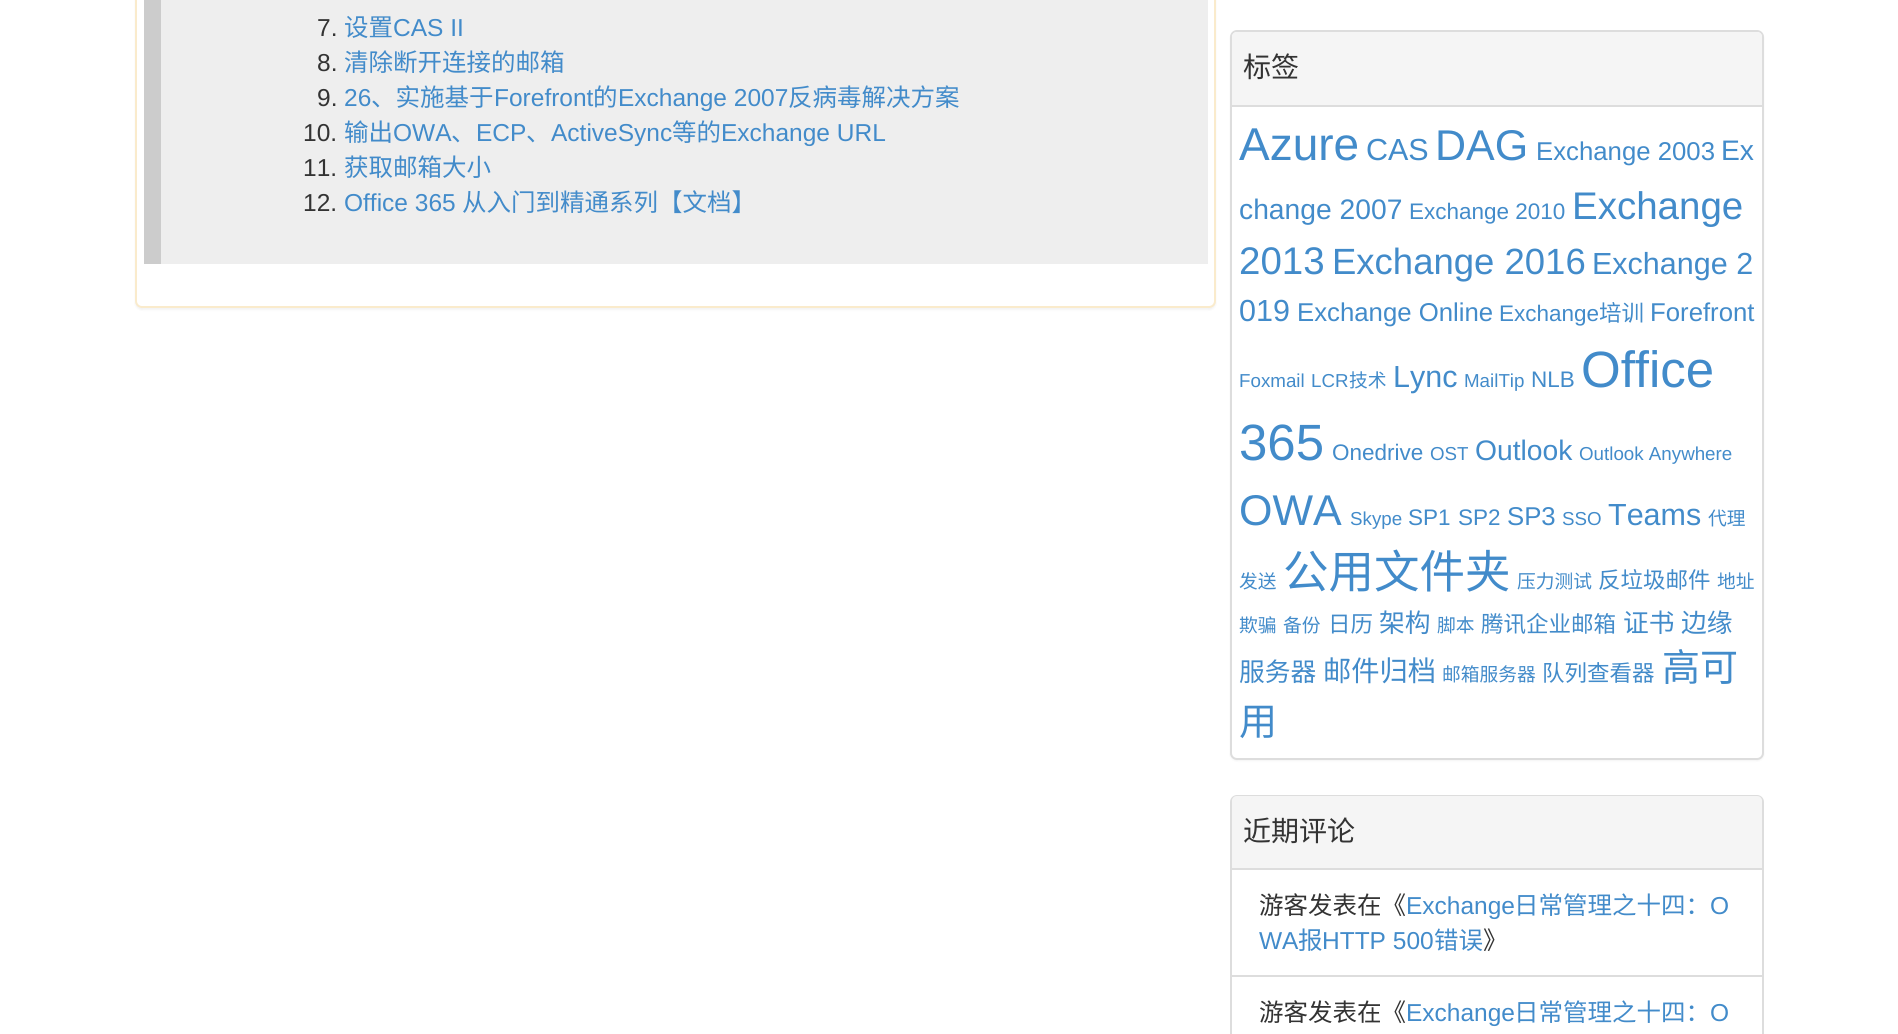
import math
import cairo

surface = cairo.ImageSurface(cairo.FORMAT_RGB24, 1898, 1034)
c = cairo.Context(surface)
options = cairo.FontOptions()
options.set_hint_metrics(cairo.HINT_METRICS_OFF)
options.set_hint_style(cairo.HINT_STYLE_NONE)
c.set_font_options(options)
c.set_miter_limit(4)
def C(code):
 c.set_source_rgb(*(v / 255 for v in bytes.fromhex(code[-6:])))
def F(family, size, italic, bold):
 c.select_font_face(family, cairo.FONT_SLANT_ITALIC if italic else cairo.FONT_SLANT_NORMAL, cairo.FONT_WEIGHT_BOLD if bold else cairo.FONT_WEIGHT_NORMAL)
 c.set_font_size(size)
def T(x, y, s):
 c.move_to(x, y)
 c.show_text(s)
def R(x, y, w, h):
 c.rectangle(x, y, w, h)
 c.fill()
def Q(x, y, w, h, r):
 c.new_sub_path()
 for i, (u, v) in enumerate([(x + w - r, y + h - r), (x + r, y + h - r), (x + r, y + r), (x + w - r, y + r)]):
  c.arc(u, v, r, i * math.pi / 2, (i + 1) * math.pi / 2)
 c.close_path()
def S(x, y, w, h, r, blur, alpha):
 c.push_group_with_content(cairo.CONTENT_ALPHA)
 c.set_operator(cairo.OPERATOR_SOURCE)
 for i in range(15, -16, -2):
  e = blur * i / 6
  if min(w, h) + 2 * e > 0:
   c.set_source_rgba(0, 0, 0, alpha * math.erfc((i - 1) / 8.5) / 2)
   Q(x - e, y - e, w + 2 * e, h + 2 * e, max(0, min(r + e + blur * .6, min(w, h) / 2 + e)))
   c.fill()
 c.mask(c.pop_group())
C('ffffff')
c.paint()
C('000000')
S(135,-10,1081,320,7,1,.05)
C('ffffff')
Q(136,-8,1079,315,6)
c.fill_preserve()
C('faebcc')
c.stroke()
C('eeeeee')
R(161,0,1047,264)
C('cccccc')
R(144,0,17,264)
F('Liberation Sans',24.5,0,0)
C('333333')
T(317,36,'7.')
F('Noto Sans CJK SC',24.5,0,0)
C('428bca')
T(344,36,'设置')
F('Liberation Sans',24.5,0,0)
T(393,36,'CAS II')
C('333333')
T(317,71,'8.')
F('Noto Sans CJK SC',24.5,0,0)
C('428bca')
T(344,71,'清除断开连接的邮箱')
F('Liberation Sans',24.5,0,0)
C('333333')
T(317,106,'9.')
C('428bca')
T(344,106,'26')
F('Noto Sans CJK SC',24.5,0,0)
T(371,106,'、实施基于')
F('Liberation Sans',24.5,0,0)
T(494,106,'Forefront')
F('Noto Sans CJK SC',24.5,0,0)
T(593,106,'的')
F('Liberation Sans',24.5,0,0)
T(618,106,'Exchange 2007')
F('Noto Sans CJK SC',24.5,0,0)
T(788,106,'反病毒解决方案')
F('Liberation Sans',24.5,0,0)
C('333333')
T(303,141,'10.')
F('Noto Sans CJK SC',24.5,0,0)
C('428bca')
T(344,141,'输出')
F('Liberation Sans',24.5,0,0)
T(393,141,'OWA')
F('Noto Sans CJK SC',24.5,0,0)
T(451,141,'、')
F('Liberation Sans',24.5,0,0)
T(476,141,'ECP')
F('Noto Sans CJK SC',24.5,0,0)
T(526,141,'、')
F('Liberation Sans',24.5,0,0)
T(551,141,'ActiveSync')
F('Noto Sans CJK SC',24.5,0,0)
T(672,141,'等的')
F('Liberation Sans',24.5,0,0)
T(721,141,'Exchange URL')
C('333333')
T(303,176,'11.')
F('Noto Sans CJK SC',24.5,0,0)
C('428bca')
T(344,176,'获取邮箱大小')
F('Liberation Sans',24.5,0,0)
C('333333')
T(303,211,'12.')
C('428bca')
T(344,211,'Office 365')
F('Noto Sans CJK SC',24.5,0,0)
T(462,211,'从入门到精通系列【文档】')
C('000000')
S(1230,32,534,729,7,1,.05)
C('ffffff')
Q(1231,31,532,728,6)
c.fill_preserve()
C('dddddd')
c.stroke()
C('f5f5f5')
c.new_path()
c.move_to(1237,32)
c.line_to(1757,32)
c.curve_to(1760,32,1762,34,1762,37)
c.line_to(1762,107)
c.line_to(1232,107)
c.line_to(1232,37)
c.curve_to(1232,34,1234,32,1237,32)
c.close_path()
c.fill()
C('dddddd')
R(1232,105,530,2)
F('Noto Sans CJK SC',28,0,0)
C('333333')
T(1243,77,'标签')
F('Liberation Sans',46,0,0)
C('428bca')
T(1239,160,'Azure')
F('Liberation Sans',30.5,0,0)
T(1366,160,'CAS')
F('Liberation Sans',43,0,0)
T(1435,160,'DAG')
F('Liberation Sans',25.75,0,0)
T(1536,160,'Exchange 2003')
F('Liberation Sans',28.25,0,0)
T(1721,160,'Ex')
T(1239,219,'change 2007')
F('Liberation Sans',22.5,0,0)
T(1409,219,'Exchange 2010')
F('Liberation Sans',38.5,0,0)
T(1572,219,'Exchange')
T(1239,274,'2013')
F('Liberation Sans',36.5,0,0)
T(1332,274,'Exchange 2016')
F('Liberation Sans',30.5,0,0)
T(1592,274,'Exchange 2')
T(1239,321,'019')
F('Liberation Sans',25.75,0,0)
T(1297,321,'Exchange Online')
F('Liberation Sans',22.5,0,0)
T(1499,321,'Exchange')
F('Noto Sans CJK SC',22.5,0,0)
T(1599,321,'培训')
F('Liberation Sans',25.75,0,0)
T(1650,321,'Forefront')
F('Liberation Sans',18.75,0,0)
T(1239,387,'Foxmail')
T(1311,387,'LCR')
F('Noto Sans CJK SC',18.75,0,0)
T(1349,387,'技术')
F('Liberation Sans',30.5,0,0)
T(1393,387,'Lync')
F('Liberation Sans',18.75,0,0)
T(1464,387,'MailTip')
F('Liberation Sans',22.5,0,0)
T(1531,387,'NLB')
F('Liberation Sans',51,0,0)
T(1581,387,'Office')
T(1239,460,'365')
F('Liberation Sans',22.5,0,0)
T(1332,460,'Onedrive')
F('Liberation Sans',18.75,0,0)
T(1430,460,'OST')
F('Liberation Sans',28.25,0,0)
T(1475,460,'Outlook')
F('Liberation Sans',18.75,0,0)
T(1579,460,'Outlook Anywhere')
F('Liberation Sans',43,0,0)
T(1239,525,'OWA')
F('Liberation Sans',18.75,0,0)
T(1350,525,'Skype')
F('Liberation Sans',22.5,0,0)
T(1408,525,'SP1')
T(1458,525,'SP2')
F('Liberation Sans',25.75,0,0)
T(1507,525,'SP3')
F('Liberation Sans',18.75,0,0)
T(1562,525,'SSO')
F('Liberation Sans',30.5,0,0)
T(1608,525,'Teams')
F('Noto Sans CJK SC',18.75,0,0)
T(1708,525,'代理')
T(1239,588,'发送')
F('Noto Sans CJK SC',45.5,0,0)
T(1283,588,'公用文件夹')
F('Noto Sans CJK SC',18.75,0,0)
T(1517,588,'压力测试')
F('Noto Sans CJK SC',22.5,0,0)
T(1598,588,'反垃圾邮件')
F('Noto Sans CJK SC',18.75,0,0)
T(1717,588,'地址')
T(1239,632,'欺骗')
T(1283,632,'备份')
F('Noto Sans CJK SC',22.5,0,0)
T(1328,632,'日历')
F('Noto Sans CJK SC',25.75,0,0)
T(1379,632,'架构')
F('Noto Sans CJK SC',18.75,0,0)
T(1437,632,'脚本')
F('Noto Sans CJK SC',22.5,0,0)
T(1481,632,'腾讯企业邮箱')
F('Noto Sans CJK SC',25.75,0,0)
T(1623,632,'证书')
T(1681,632,'边缘')
T(1239,681,'服务器')
F('Noto Sans CJK SC',28.25,0,0)
T(1323,681,'邮件归档')
F('Noto Sans CJK SC',18.75,0,0)
T(1442,681,'邮箱服务器')
F('Noto Sans CJK SC',22.5,0,0)
T(1542,681,'队列查看器')
F('Noto Sans CJK SC',38,0,0)
T(1662,681,'高可')
T(1239,735,'用')
Q(1231,796,532,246,6)
C('dddddd')
c.stroke()
C('f5f5f5')
c.new_path()
c.move_to(1237,796)
c.line_to(1757,796)
c.curve_to(1760,796,1762,798,1762,801)
c.line_to(1762,870)
c.line_to(1232,870)
c.line_to(1232,801)
c.curve_to(1232,798,1234,796,1237,796)
c.close_path()
c.fill()
C('dddddd')
R(1232,868,530,2)
F('Noto Sans CJK SC',28,0,0)
C('333333')
T(1243,841,'近期评论')
C('dddddd')
R(1232,975,530,2)
F('Noto Sans CJK SC',24.5,0,0)
C('333333')
T(1259,914,'游客发表在《')
F('Liberation Sans',24.5,0,0)
C('428bca')
T(1406,914,'Exchange')
F('Noto Sans CJK SC',24.5,0,0)
T(1514,914,'日常管理之十四：')
F('Liberation Sans',24.5,0,0)
T(1710,914,'O')
T(1259,949,'WA')
F('Noto Sans CJK SC',24.5,0,0)
T(1298,949,'报')
F('Liberation Sans',24.5,0,0)
T(1322,949,'HTTP 500')
F('Noto Sans CJK SC',24.5,0,0)
T(1434,949,'错误')
C('333333')
T(1483,949,'》')
T(1259,1021,'游客发表在《')
F('Liberation Sans',24.5,0,0)
C('428bca')
T(1406,1021,'Exchange')
F('Noto Sans CJK SC',24.5,0,0)
T(1514,1021,'日常管理之十四：')
F('Liberation Sans',24.5,0,0)
T(1710,1021,'O')
surface.write_to_png('o.png')
